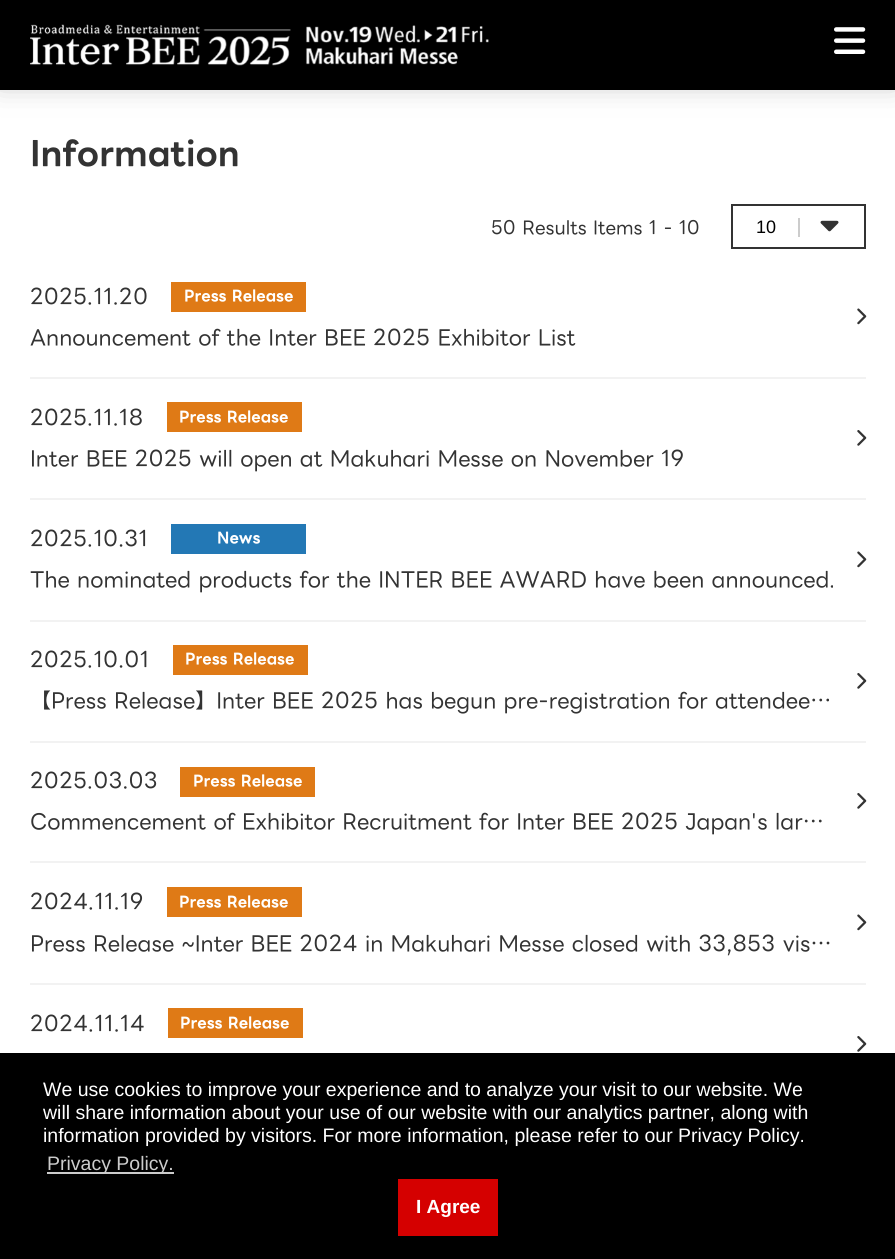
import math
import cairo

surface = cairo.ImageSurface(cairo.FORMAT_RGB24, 895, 1259)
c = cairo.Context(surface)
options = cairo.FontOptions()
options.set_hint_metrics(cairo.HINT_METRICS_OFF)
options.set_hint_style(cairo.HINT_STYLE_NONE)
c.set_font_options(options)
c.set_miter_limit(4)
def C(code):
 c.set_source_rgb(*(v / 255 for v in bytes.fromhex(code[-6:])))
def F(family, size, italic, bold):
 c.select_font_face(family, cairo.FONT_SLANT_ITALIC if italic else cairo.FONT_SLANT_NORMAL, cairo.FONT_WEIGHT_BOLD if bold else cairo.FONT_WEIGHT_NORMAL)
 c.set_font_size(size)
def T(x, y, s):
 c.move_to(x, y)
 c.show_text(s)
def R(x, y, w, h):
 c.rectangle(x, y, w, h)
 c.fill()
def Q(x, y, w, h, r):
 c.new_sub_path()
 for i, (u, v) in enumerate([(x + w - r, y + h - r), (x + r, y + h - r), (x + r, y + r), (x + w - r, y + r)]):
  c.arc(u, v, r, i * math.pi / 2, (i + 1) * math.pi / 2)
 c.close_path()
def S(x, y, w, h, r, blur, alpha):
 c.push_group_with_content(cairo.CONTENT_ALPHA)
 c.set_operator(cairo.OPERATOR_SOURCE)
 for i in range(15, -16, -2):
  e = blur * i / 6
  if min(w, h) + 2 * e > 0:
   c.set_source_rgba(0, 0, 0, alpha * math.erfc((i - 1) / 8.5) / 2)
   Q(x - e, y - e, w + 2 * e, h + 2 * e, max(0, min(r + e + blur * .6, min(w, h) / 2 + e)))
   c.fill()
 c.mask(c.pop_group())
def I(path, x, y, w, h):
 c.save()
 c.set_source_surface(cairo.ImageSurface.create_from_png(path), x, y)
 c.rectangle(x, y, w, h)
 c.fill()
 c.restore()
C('ffffff')
c.paint()
C('b3b3b3')
S(0,-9,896,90,0,15,1)
C('000000')
R(0,0,895,90)
I('1.png',30,24,459,42)
I('2.png',834,27,32,27)
F('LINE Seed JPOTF',33,0,1)
C('333333')
T(30,165,'Information')
F('LINE Seed JPOTF',18,0,0)
T(491,234,'50 Results Items 1 - 10')
c.rectangle(732,205,133,43)
c.stroke()
F('Liberation Sans',18,0,0)
C('000000')
T(756,233,'10')
C('cccccc')
R(798,218,2,19)
I('3.png',820,220,19,12)
F('LINE Seed JPOTF',21,0,0)
C('333333')
T(30,304,'2025.11.20')
C('df7a16')
R(171,282,135,30)
F('LINE Seed JPOTF',15,0,1)
C('ffffff')
T(184,301,'Press Release')
I('4.png',857,308,10,17)
F('LINE Seed JPOTF',21,0,0)
C('333333')
T(30,345,'Announcement of the Inter BEE 2025 Exhibitor List')
C('f2f2f2')
R(30,377,836,2)
C('333333')
T(30,425,'2025.11.18')
C('df7a16')
R(167,402,135,30)
F('LINE Seed JPOTF',15,0,1)
C('ffffff')
T(179,422,'Press Release')
I('5.png',857,430,10,16)
F('LINE Seed JPOTF',21,0,0)
C('333333')
T(30,466,'Inter BEE 2025 will open at Makuhari Messe on November 19')
C('f2f2f2')
R(30,498,836,2)
C('333333')
T(30,546,'2025.10.31')
C('2378b5')
R(171,524,135,30)
F('LINE Seed JPOTF',15,0,1)
C('ffffff')
T(217,543,'News')
I('4.png',857,551,10,17)
F('LINE Seed JPOTF',21,0,0)
C('333333')
T(30,587,'The nominated products for the INTER BEE AWARD have been announced.')
C('f2f2f2')
R(30,620,836,2)
C('333333')
T(30,667,'2025.10.01')
C('df7a16')
R(173,645,135,30)
F('LINE Seed JPOTF',15,0,1)
C('ffffff')
T(185,664,'Press Release')
I('5.png',857,673,10,16)
F('LINE Seed JPOTF',21,0,0)
C('333333')
T(30,708,'【Press Release】Inter BEE 2025 has begun pre-registration for attendee…')
C('f2f2f2')
R(30,741,836,2)
C('333333')
T(30,788,'2025.03.03')
C('df7a16')
R(180,767,135,30)
F('LINE Seed JPOTF',15,0,1)
C('ffffff')
T(193,786,'Press Release')
I('5.png',857,793,10,16)
F('LINE Seed JPOTF',21,0,0)
C('333333')
T(30,829,'Commencement of Exhibitor Recruitment for Inter BEE 2025 Japan\'s lar…')
C('f2f2f2')
R(30,861,836,2)
C('333333')
T(30,909,'2024.11.19')
C('df7a16')
R(167,887,135,30)
F('LINE Seed JPOTF',15,0,1)
C('ffffff')
T(179,907,'Press Release')
I('4.png',857,914,10,17)
F('LINE Seed JPOTF',21,0,0)
C('333333')
T(30,951,'Press Release ~Inter BEE 2024 in Makuhari Messe closed with 33,853 vis…')
C('f2f2f2')
R(30,983,836,2)
C('333333')
T(30,1031,'2024.11.14')
C('df7a16')
R(168,1008,135,30)
F('LINE Seed JPOTF',15,0,1)
C('ffffff')
T(180,1028,'Press Release')
I('5.png',857,1036,10,16)
C('000000')
R(0,1053,895,206)
F('Liberation Sans',19.5,0,0)
C('ffffff')
T(43,1096,'We use cookies to improve your experience and to analyze your visit to our website. We')
T(43,1119,'will share information about your use of our website with our analytics partner, along with')
T(43,1142,'information provided by visitors. For more information, please refer to our Privacy Policy.')
C('cccccc')
R(47,1172,127,2)
T(47,1170,'Privacy Policy.')
C('d50000')
R(398,1179,100,57)
F('Liberation Sans',19,0,1)
C('ffffff')
T(416,1213,'I Agree')
surface.write_to_png('o.png')
